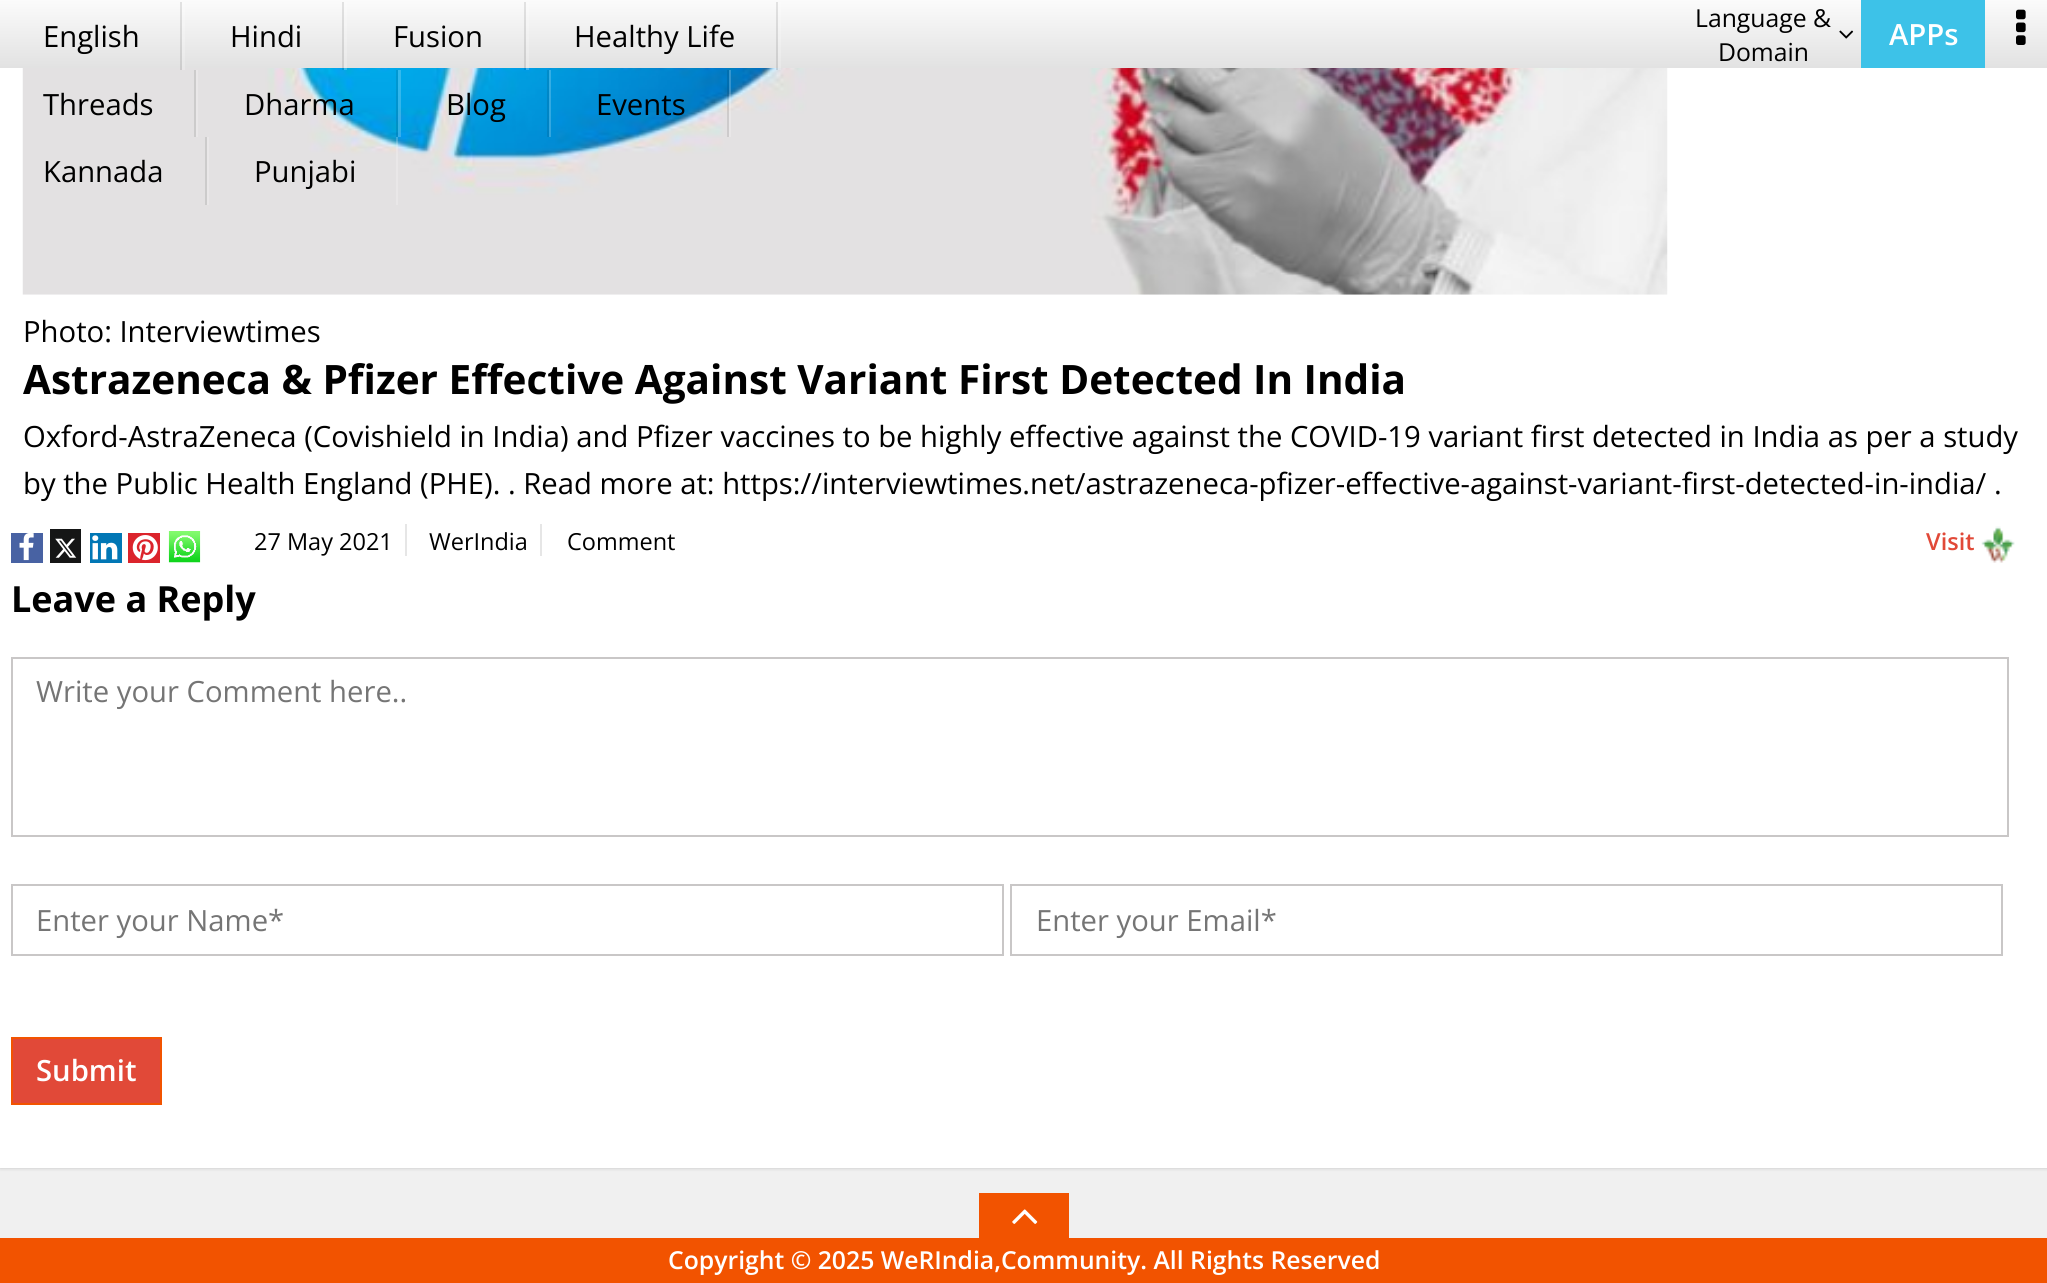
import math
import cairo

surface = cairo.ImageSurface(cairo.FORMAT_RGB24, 2047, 1283)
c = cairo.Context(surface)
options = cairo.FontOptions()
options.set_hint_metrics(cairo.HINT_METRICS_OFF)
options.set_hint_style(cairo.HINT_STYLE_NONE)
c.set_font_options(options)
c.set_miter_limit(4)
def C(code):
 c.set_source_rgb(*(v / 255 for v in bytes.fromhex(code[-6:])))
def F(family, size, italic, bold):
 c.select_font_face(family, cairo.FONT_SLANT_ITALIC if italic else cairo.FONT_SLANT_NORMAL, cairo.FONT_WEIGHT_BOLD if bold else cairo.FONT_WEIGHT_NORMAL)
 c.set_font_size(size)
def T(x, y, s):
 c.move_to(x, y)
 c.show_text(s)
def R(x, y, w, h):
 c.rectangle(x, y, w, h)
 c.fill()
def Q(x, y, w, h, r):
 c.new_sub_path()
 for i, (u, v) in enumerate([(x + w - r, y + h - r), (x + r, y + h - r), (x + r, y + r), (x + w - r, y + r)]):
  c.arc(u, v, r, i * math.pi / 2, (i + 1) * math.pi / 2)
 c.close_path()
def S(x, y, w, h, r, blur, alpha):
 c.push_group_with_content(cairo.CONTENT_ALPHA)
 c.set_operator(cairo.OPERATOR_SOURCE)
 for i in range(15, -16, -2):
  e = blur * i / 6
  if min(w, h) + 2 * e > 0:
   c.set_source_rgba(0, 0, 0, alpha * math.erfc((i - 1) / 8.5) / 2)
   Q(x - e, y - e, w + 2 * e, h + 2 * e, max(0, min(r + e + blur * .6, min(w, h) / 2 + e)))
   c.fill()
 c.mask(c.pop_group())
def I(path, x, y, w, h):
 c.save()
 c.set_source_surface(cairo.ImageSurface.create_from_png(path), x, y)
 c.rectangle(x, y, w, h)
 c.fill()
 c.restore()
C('f0f0f0')
c.paint()
C('000000')
S(0,-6,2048,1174,0,2,.2)
gradient = cairo.LinearGradient(1024,0,1024,68)
gradient.add_color_stop_rgba(0,0.984,0.984,0.984,1)
gradient.add_color_stop_rgba(1,0.886,0.886,0.886,1)
c.set_source(gradient)
R(0,0,2047,68)
C('ffffff')
R(0,68,2047,1100)
I('3.png',22,68,1646,227)
c.set_source_rgba(1,1,1,0.2)
c.new_path()
c.move_to(5,2)
c.line_to(182,2)
c.line_to(182,70)
c.line_to(5,70)
c.line_to(185,70)
c.line_to(185,2)
c.close_path()
c.fill()
c.set_source_rgba(0,0,0,0.1)
R(180,2,2,68)
F('Open Sans',29.25,0,0)
C('000000')
T(43,47,'English')
c.set_source_rgba(1,1,1,0.2)
c.new_path()
c.move_to(191,2)
c.line_to(344,2)
c.line_to(344,70)
c.line_to(191,70)
c.line_to(347,70)
c.line_to(347,2)
c.close_path()
c.fill()
c.set_source_rgba(0,0,0,0.1)
R(342,2,2,68)
C('000000')
T(230,47,'Hindi')
c.set_source_rgba(1,1,1,0.2)
c.new_path()
c.move_to(356,2)
c.line_to(526,2)
c.line_to(526,70)
c.line_to(356,70)
c.line_to(529,70)
c.line_to(529,2)
c.close_path()
c.fill()
c.set_source_rgba(0,0,0,0.1)
R(524,2,2,68)
C('000000')
T(393,47,'Fusion')
c.set_source_rgba(1,1,1,0.2)
c.new_path()
c.move_to(536,2)
c.line_to(778,2)
c.line_to(778,70)
c.line_to(536,70)
c.line_to(781,70)
c.line_to(781,2)
c.close_path()
c.fill()
c.set_source_rgba(0,0,0,0.1)
R(776,2,2,68)
C('000000')
T(574,47,'Healthy Life')
C('e9e7e8')
R(196,70,2,67)
C('cccbcb')
R(194,70,2,67)
C('000000')
T(43,115,'Threads')
c.set_source_rgba(1,1,1,0.2)
R(398,70,3,67)
c.set_source_rgba(0,0,0,0.1)
R(396,70,2,67)
C('000000')
T(244,115,'Dharma')
c.set_source_rgba(1,1,1,0.2)
R(549,70,2,67)
c.set_source_rgba(0,0,0,0.1)
R(547,70,2,67)
C('000000')
T(446,115,'Blog')
c.set_source_rgba(1,1,1,0.2)
R(729,70,2,67)
c.set_source_rgba(0,0,0,0.1)
R(727,70,2,67)
C('000000')
T(596,115,'Events')
C('e9e7e8')
c.new_path()
c.move_to(5,137)
c.line_to(207,137)
c.line_to(207,205)
c.line_to(5,205)
c.line_to(209,205)
c.line_to(209,137)
c.close_path()
c.fill()
C('cccbcb')
R(205,137,2,68)
C('000000')
T(43,182,'Kannada')
c.set_source_rgba(1,1,1,0.2)
c.new_path()
c.move_to(216,137)
c.line_to(396,137)
c.line_to(396,205)
c.line_to(216,205)
c.line_to(398,205)
c.line_to(398,137)
c.close_path()
c.fill()
C('000000')
T(254,182,'Punjabi')
F('Open Sans',24.75,0,0)
T(1695,27,'Language &')
I('1.png',1839,30,15,9)
T(1718,61,'Domain')
C('3dc2e8')
R(1861,0,124,68)
F('Open Sans SemiBold',29.25,0,0)
C('ffffff')
T(1889,45,'APPs')
I('2.png',2016,9,10,36)
F('Open Sans',29.25,0,0)
C('000000')
T(23,342,'Photo: Interviewtimes')
F('Open Sans',40.5,0,1)
T(23,394,'Astrazeneca & Pfizer Effective Against Variant First Detected In India')
F('Open Sans',29.25,0,0)
T(23,447,'Oxford-AstraZeneca (Covishield in India) and Pfizer vaccines to be highly effective against the COVID-19 variant first detected in India as per a study')
T(23,494,'by the Public Health England (PHE). . Read more at: https://interviewtimes.net/astrazeneca-pfizer-effective-against-variant-first-detected-in-india/ .')
C('4862a3')
R(11,533,32,30)
I('4.png',19,533,15,28)
C('151616')
R(50,529,31,34)
I('5.png',55,538,22,20)
C('0177b5')
R(90,533,32,30)
I('6.png',92,535,26,25)
C('db242c')
R(128,533,32,30)
I('7.png',132,535,26,26)
I('8.png',168,531,33,32)
C('e6e6e6')
R(405,524,2,32)
F('Open Sans',23.5,0,0)
C('000000')
T(254,550,'27 May 2021')
C('e6e6e6')
R(540,524,2,32)
C('000000')
T(429,550,'WerIndia')
T(567,550,'Comment')
F('Open Sans SemiBold',23.5,0,0)
C('e14938')
T(1926,550,'Visit')
I('9.png',1981,526,34,37)
F('Open Sans',36,0,1)
C('000000')
T(11,612,'Leave a Reply')
c.rectangle(12,658,1996,178)
C('c9c7c7')
c.stroke()
F('Open Sans',29.25,0,0)
C('757575')
T(36,702,'Write your Comment here..')
c.rectangle(12,885,991,70)
C('c9c7c7')
c.stroke()
C('757575')
T(36,931,'Enter your Name*')
c.rectangle(1011,885,991,70)
C('c9c7c7')
c.stroke()
C('757575')
T(1036,931,'Enter your Email*')
C('e14938')
c.rectangle(12,1038,149,66)
c.fill_preserve()
C('f25300')
c.stroke()
F('Open Sans SemiBold',29.25,0,0)
C('ffffff')
T(36,1081,'Submit')
C('f25300')
R(0,1238,2047,45)
R(979,1193,90,45)
I('10.png',1012,1209,26,15)
F('Open Sans SemiBold',24.75,0,0)
C('ffffff')
T(668,1269,'Copyright © 2025 WeRIndia,Community. All Rights Reserved')
surface.write_to_png('o.png')
